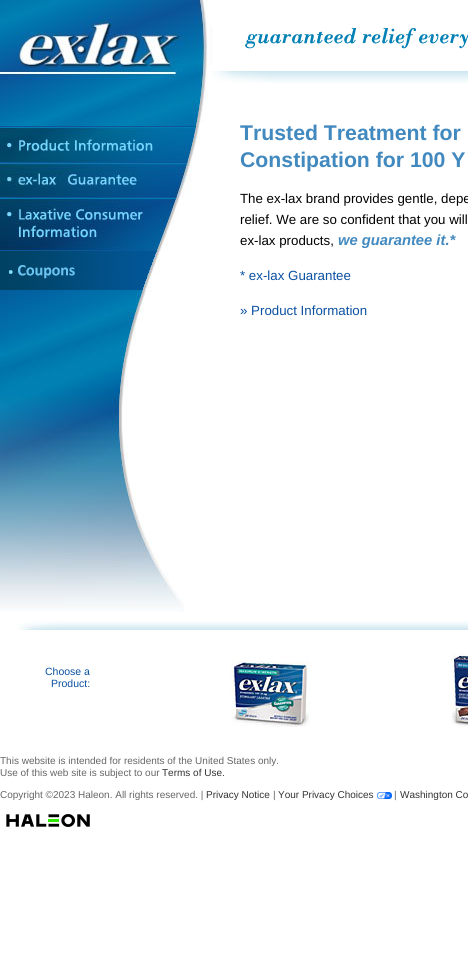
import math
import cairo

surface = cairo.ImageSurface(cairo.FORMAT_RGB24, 468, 980)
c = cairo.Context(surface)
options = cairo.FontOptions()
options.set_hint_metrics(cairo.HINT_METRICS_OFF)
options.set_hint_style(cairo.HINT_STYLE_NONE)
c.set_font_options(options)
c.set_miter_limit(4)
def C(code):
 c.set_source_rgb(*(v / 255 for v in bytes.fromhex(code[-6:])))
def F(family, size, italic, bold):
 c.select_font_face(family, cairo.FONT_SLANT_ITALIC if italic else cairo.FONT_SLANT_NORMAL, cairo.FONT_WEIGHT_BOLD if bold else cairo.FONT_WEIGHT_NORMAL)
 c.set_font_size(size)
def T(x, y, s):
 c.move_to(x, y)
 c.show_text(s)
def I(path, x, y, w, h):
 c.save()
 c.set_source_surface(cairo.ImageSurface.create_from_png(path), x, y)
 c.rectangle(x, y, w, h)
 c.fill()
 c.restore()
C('ffffff')
c.paint()
I('1.png',0,0,208,90)
I('2.png',210,26,258,57)
I('3.png',0,90,208,37)
I('4.png',0,127,200,36)
I('5.png',0,163,192,35)
I('6.png',0,198,180,53)
I('7.png',0,251,160,39)
I('8.png',0,290,184,322)
F('Liberation Sans',21.25,0,1)
C('4189be')
T(240,140,'Trusted Treatment for')
T(240,167,'Constipation for 100 Y')
F('Liberation Sans',13.3,0,0)
C('000000')
T(240,203,'The ex-lax brand provides gentle, depe')
T(240,224,'relief. We are so confident that you will')
T(240,245,'ex-lax products,')
F('Liberation Sans',14.75,1,1)
C('4189be')
T(338,245,'we guarantee it.*')
F('Liberation Sans',13.3,0,0)
C('0a50a1')
T(240,280,'* ex-lax Guarantee')
T(240,315,'» Product Information')
I('9.png',17,621,451,9)
F('Liberation Sans',10.5,0,0)
T(45,675,'Choose a')
T(51,687,'Product:')
I('10.png',231,661,80,66)
I('11.png',451,653,17,74)
F('Liberation Sans',10,0,0)
C('666666')
T(0,764,'This website is intended for residents of the United States only.')
T(0,776,'Use of this web site is subject to our')
C('333333')
T(162,776,'Terms of Use.')
C('666666')
T(0,798,'Copyright ©2023 Haleon. All rights reserved. |')
C('333333')
T(206,798,'Privacy Notice')
C('666666')
T(273,798,'|')
C('333333')
T(278,798,'Your Privacy Choices')
I('12.png',377,792,15,7)
C('666666')
T(394,798,'|')
C('333333')
T(400,798,'Washington Co')
I('13.png',6,814,84,13)
surface.write_to_png('o.png')
